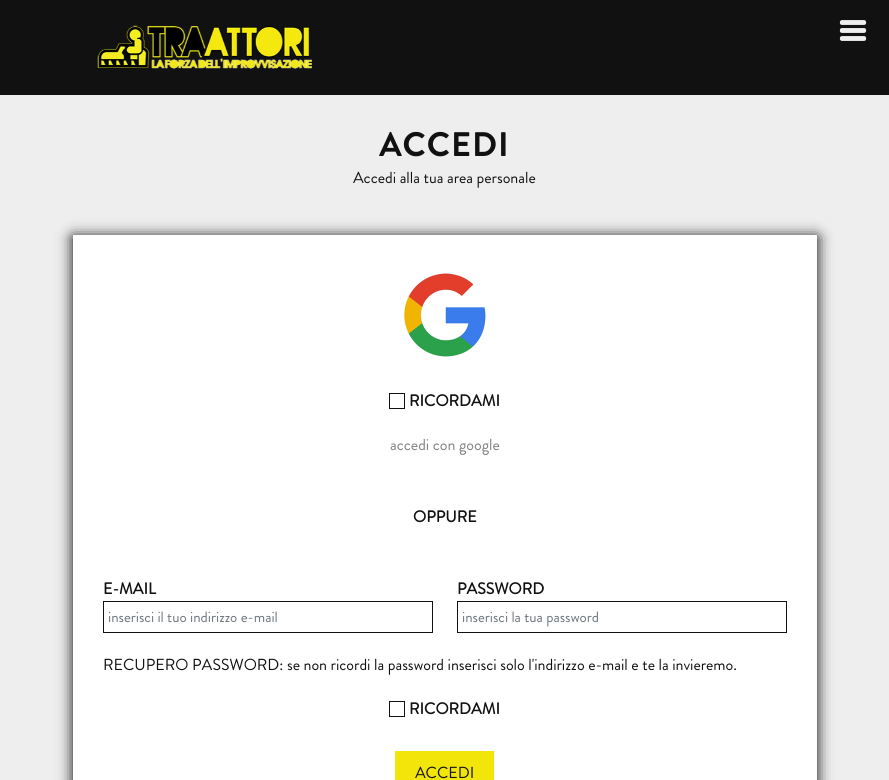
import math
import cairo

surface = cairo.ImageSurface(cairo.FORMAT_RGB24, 889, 780)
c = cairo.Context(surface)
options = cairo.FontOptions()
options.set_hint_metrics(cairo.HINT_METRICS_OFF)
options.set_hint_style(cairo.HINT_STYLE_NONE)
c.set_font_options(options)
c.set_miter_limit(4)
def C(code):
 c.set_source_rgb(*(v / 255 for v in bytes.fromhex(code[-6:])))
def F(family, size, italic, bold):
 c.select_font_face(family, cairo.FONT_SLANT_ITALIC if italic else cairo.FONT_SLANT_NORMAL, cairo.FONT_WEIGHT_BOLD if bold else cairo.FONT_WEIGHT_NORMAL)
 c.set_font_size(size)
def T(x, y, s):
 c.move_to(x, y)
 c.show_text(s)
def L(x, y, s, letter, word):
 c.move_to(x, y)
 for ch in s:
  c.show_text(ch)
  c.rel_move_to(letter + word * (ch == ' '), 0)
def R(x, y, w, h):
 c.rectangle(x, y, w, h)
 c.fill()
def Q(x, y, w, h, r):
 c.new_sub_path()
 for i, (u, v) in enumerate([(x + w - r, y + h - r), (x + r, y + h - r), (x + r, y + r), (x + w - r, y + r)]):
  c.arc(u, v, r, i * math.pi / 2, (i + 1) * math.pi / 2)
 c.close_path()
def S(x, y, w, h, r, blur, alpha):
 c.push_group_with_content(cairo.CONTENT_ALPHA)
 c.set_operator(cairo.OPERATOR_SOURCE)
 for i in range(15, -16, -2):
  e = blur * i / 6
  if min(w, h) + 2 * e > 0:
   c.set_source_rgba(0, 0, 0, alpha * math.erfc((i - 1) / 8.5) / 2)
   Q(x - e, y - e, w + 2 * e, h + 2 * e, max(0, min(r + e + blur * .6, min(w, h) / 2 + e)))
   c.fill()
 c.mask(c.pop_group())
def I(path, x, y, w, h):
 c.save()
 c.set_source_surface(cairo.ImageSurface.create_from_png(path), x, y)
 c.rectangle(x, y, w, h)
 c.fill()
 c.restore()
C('eeeeee')
c.paint()
C('111111')
R(0,0,889,95)
I('1.png',97,25,215,44)
I('2.png',839,20,28,21)
F('Brandon Grotesque',34,0,1)
L(379,156,'ACCEDI',1,0)
F('Brandon Grotesque',16,0,0)
T(353,183,'Accedi alla tua area personale')
C('000000')
S(73,237,744,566,0,7.5,1)
C('ffffff')
R(73,235,744,545)
I('3.png',404,273,82,84)
c.rectangle(389.5,393.5,15,15)
C('111111')
c.set_line_width(1)
c.stroke()
F('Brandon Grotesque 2',16,0,1)
T(409,406,'RICORDAMI')
F('Brandon Grotesque',16,0,0)
C('808080')
T(390,450,'accedi con google')
F('Brandon Grotesque 2',16,0,1)
C('111111')
T(413,522,'OPPURE')
T(103,594,'E-MAIL')
c.rectangle(103.5,601.5,329,31)
c.stroke()
F('Brandon Grotesque',15,0,0)
C('6c757d')
T(108,622,'inserisci il tuo indirizzo e-mail')
F('Brandon Grotesque 2',16,0,1)
C('111111')
T(457,594,'PASSWORD')
c.rectangle(457.5,601.5,329,31)
c.stroke()
F('Brandon Grotesque',15,0,0)
C('6c757d')
T(462,622,'inserisci la tua password')
F('Brandon Grotesque',16,0,0)
C('111111')
T(103,670,'RECUPERO PASSWORD: se non ricordi la password inserisci solo l\'indirizzo e-mail e te la invieremo.')
c.rectangle(389.5,701.5,15,15)
c.stroke()
F('Brandon Grotesque 2',16,0,1)
T(409,714,'RICORDAMI')
C('f1e50a')
R(395,751,99,29)
F('Brandon Grotesque',16,0,0)
C('111111')
T(415,778,'ACCEDI')
surface.write_to_png('o.png')
